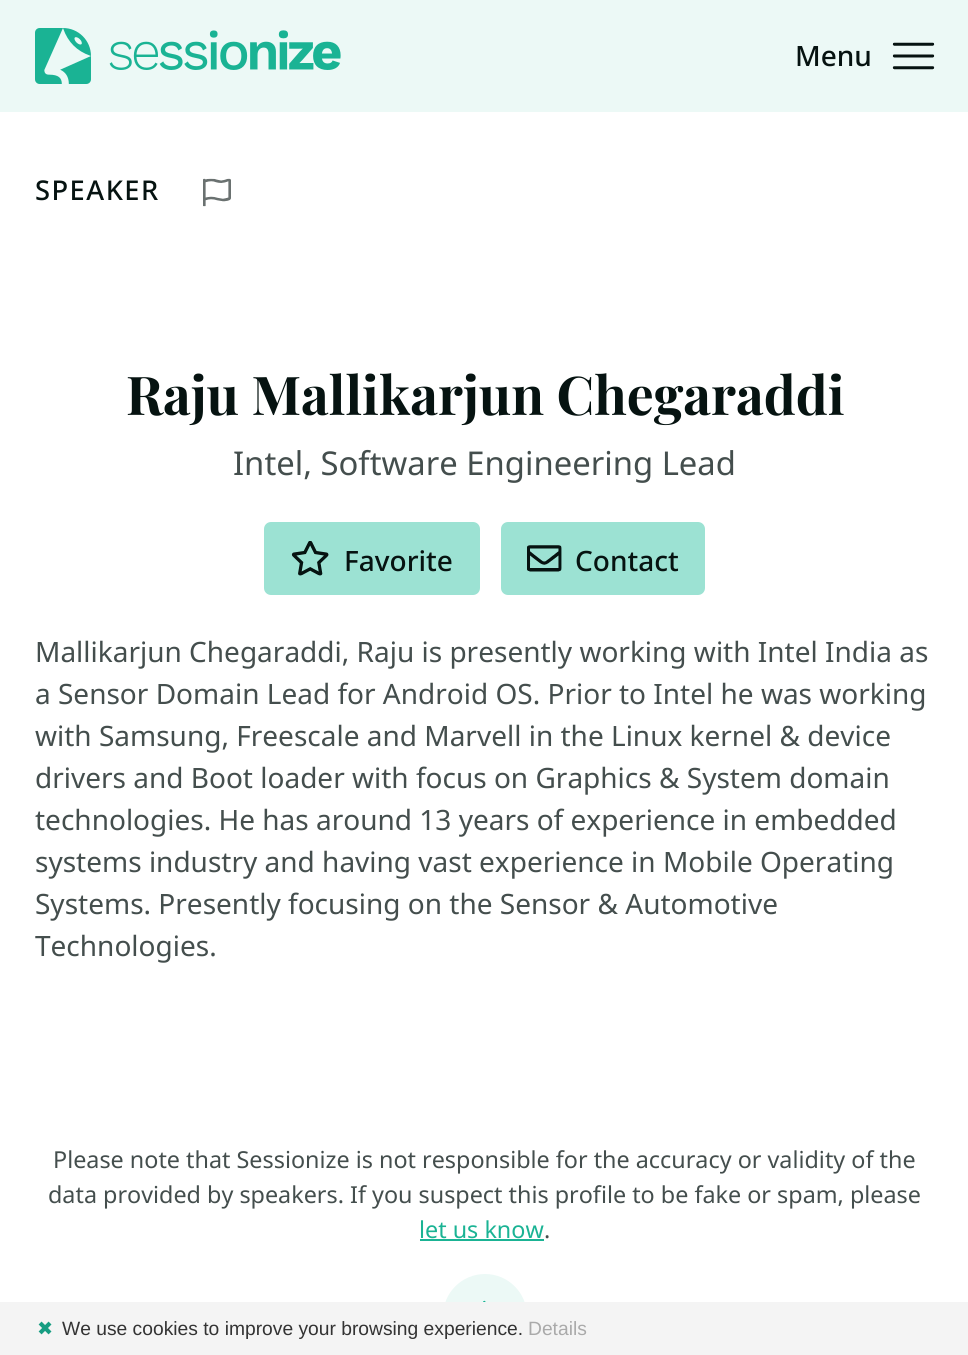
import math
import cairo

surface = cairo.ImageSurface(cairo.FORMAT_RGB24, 968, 1355)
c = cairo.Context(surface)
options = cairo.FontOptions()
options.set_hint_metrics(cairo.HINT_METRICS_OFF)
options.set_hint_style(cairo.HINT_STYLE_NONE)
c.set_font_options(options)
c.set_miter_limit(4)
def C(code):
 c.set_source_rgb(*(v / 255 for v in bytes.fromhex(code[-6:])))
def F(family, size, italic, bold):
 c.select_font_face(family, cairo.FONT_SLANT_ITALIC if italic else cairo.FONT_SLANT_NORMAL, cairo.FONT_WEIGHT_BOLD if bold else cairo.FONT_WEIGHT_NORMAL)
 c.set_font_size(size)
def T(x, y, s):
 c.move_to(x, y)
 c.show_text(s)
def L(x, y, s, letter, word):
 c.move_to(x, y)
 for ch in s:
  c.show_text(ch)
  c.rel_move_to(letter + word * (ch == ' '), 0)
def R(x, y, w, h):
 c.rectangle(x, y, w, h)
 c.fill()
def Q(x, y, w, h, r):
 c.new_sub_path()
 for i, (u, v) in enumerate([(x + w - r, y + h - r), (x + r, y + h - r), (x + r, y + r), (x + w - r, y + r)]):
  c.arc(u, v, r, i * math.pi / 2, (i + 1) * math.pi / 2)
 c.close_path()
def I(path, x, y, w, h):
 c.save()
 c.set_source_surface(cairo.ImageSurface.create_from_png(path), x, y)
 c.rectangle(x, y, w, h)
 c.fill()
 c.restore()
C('ffffff')
c.paint()
C('ecf9f6')
R(0,0,968,112)
I('1.png',35,28,306,56)
F('Noto Sans Medium',28,0,0)
C('061311')
T(795,66,'Menu')
I('2.png',892,42,43,28)
F('Noto Sans Medium',27.25,0,0)
L(35,200,'SPEAKER',1.5,0)
I('3.png',203,178,28,29)
F('Playfair Display',53.5,0,1)
T(126,415,'Raju Mallikarjun Chegaraddi')
F('Noto Sans',32.8,0,0)
C('444e4d')
T(233,475,'Intel, Software Engineering Lead')
C('9ce2d3')
Q(264,522,216,73,7)
c.fill()
I('4.png',291,541,38,35)
F('Noto Sans Medium',28,0,0)
C('061311')
T(344,571,'Favorite')
C('9ce2d3')
Q(501,522,204,73,7)
c.fill()
I('5.png',527,545,35,27)
C('061311')
T(575,571,'Contact')
F('Noto Sans',28,0,0)
C('444e4d')
T(35,662,'Mallikarjun Chegaraddi, Raju is presently working with Intel India as')
T(35,704,'a Sensor Domain Lead for Android OS. Prior to Intel he was working')
T(35,746,'with Samsung, Freescale and Marvell in the Linux kernel & device')
T(35,788,'drivers and Boot loader with focus on Graphics & System domain')
T(35,830,'technologies. He has around 13 years of experience in embedded')
T(35,872,'systems industry and having vast experience in Mobile Operating')
T(35,914,'Systems. Presently focusing on the Sensor & Automotive')
T(35,956,'Technologies.')
F('Noto Sans',23.35,0,0)
T(53,1168,'Please note that Sessionize is not responsible for the accuracy or validity of the')
T(48,1203,'data provided by speakers. If you suspect this profile to be fake or spam, please')
C('1ab394')
T(419,1238,'let us know')
R(420,1239,124,2)
C('444e4d')
T(544,1238,'.')
C('ecf9f6')
c.new_path()
c.arc(485,1316,42,0,2 * math.pi)
c.fill()
I('6.png',483,1300,3,2)
C('f4f4f4')
R(0,1302,968,53)
F('DejaVu Sans',19.25,0,0)
C('179d82')
T(37,1335,'✖')
F('Liberation Sans',19.25,0,0)
C('333333')
T(62,1335,'We use cookies to improve your browsing experience.')
C('aaaaaa')
T(528,1335,'Details')
surface.write_to_png('o.png')
